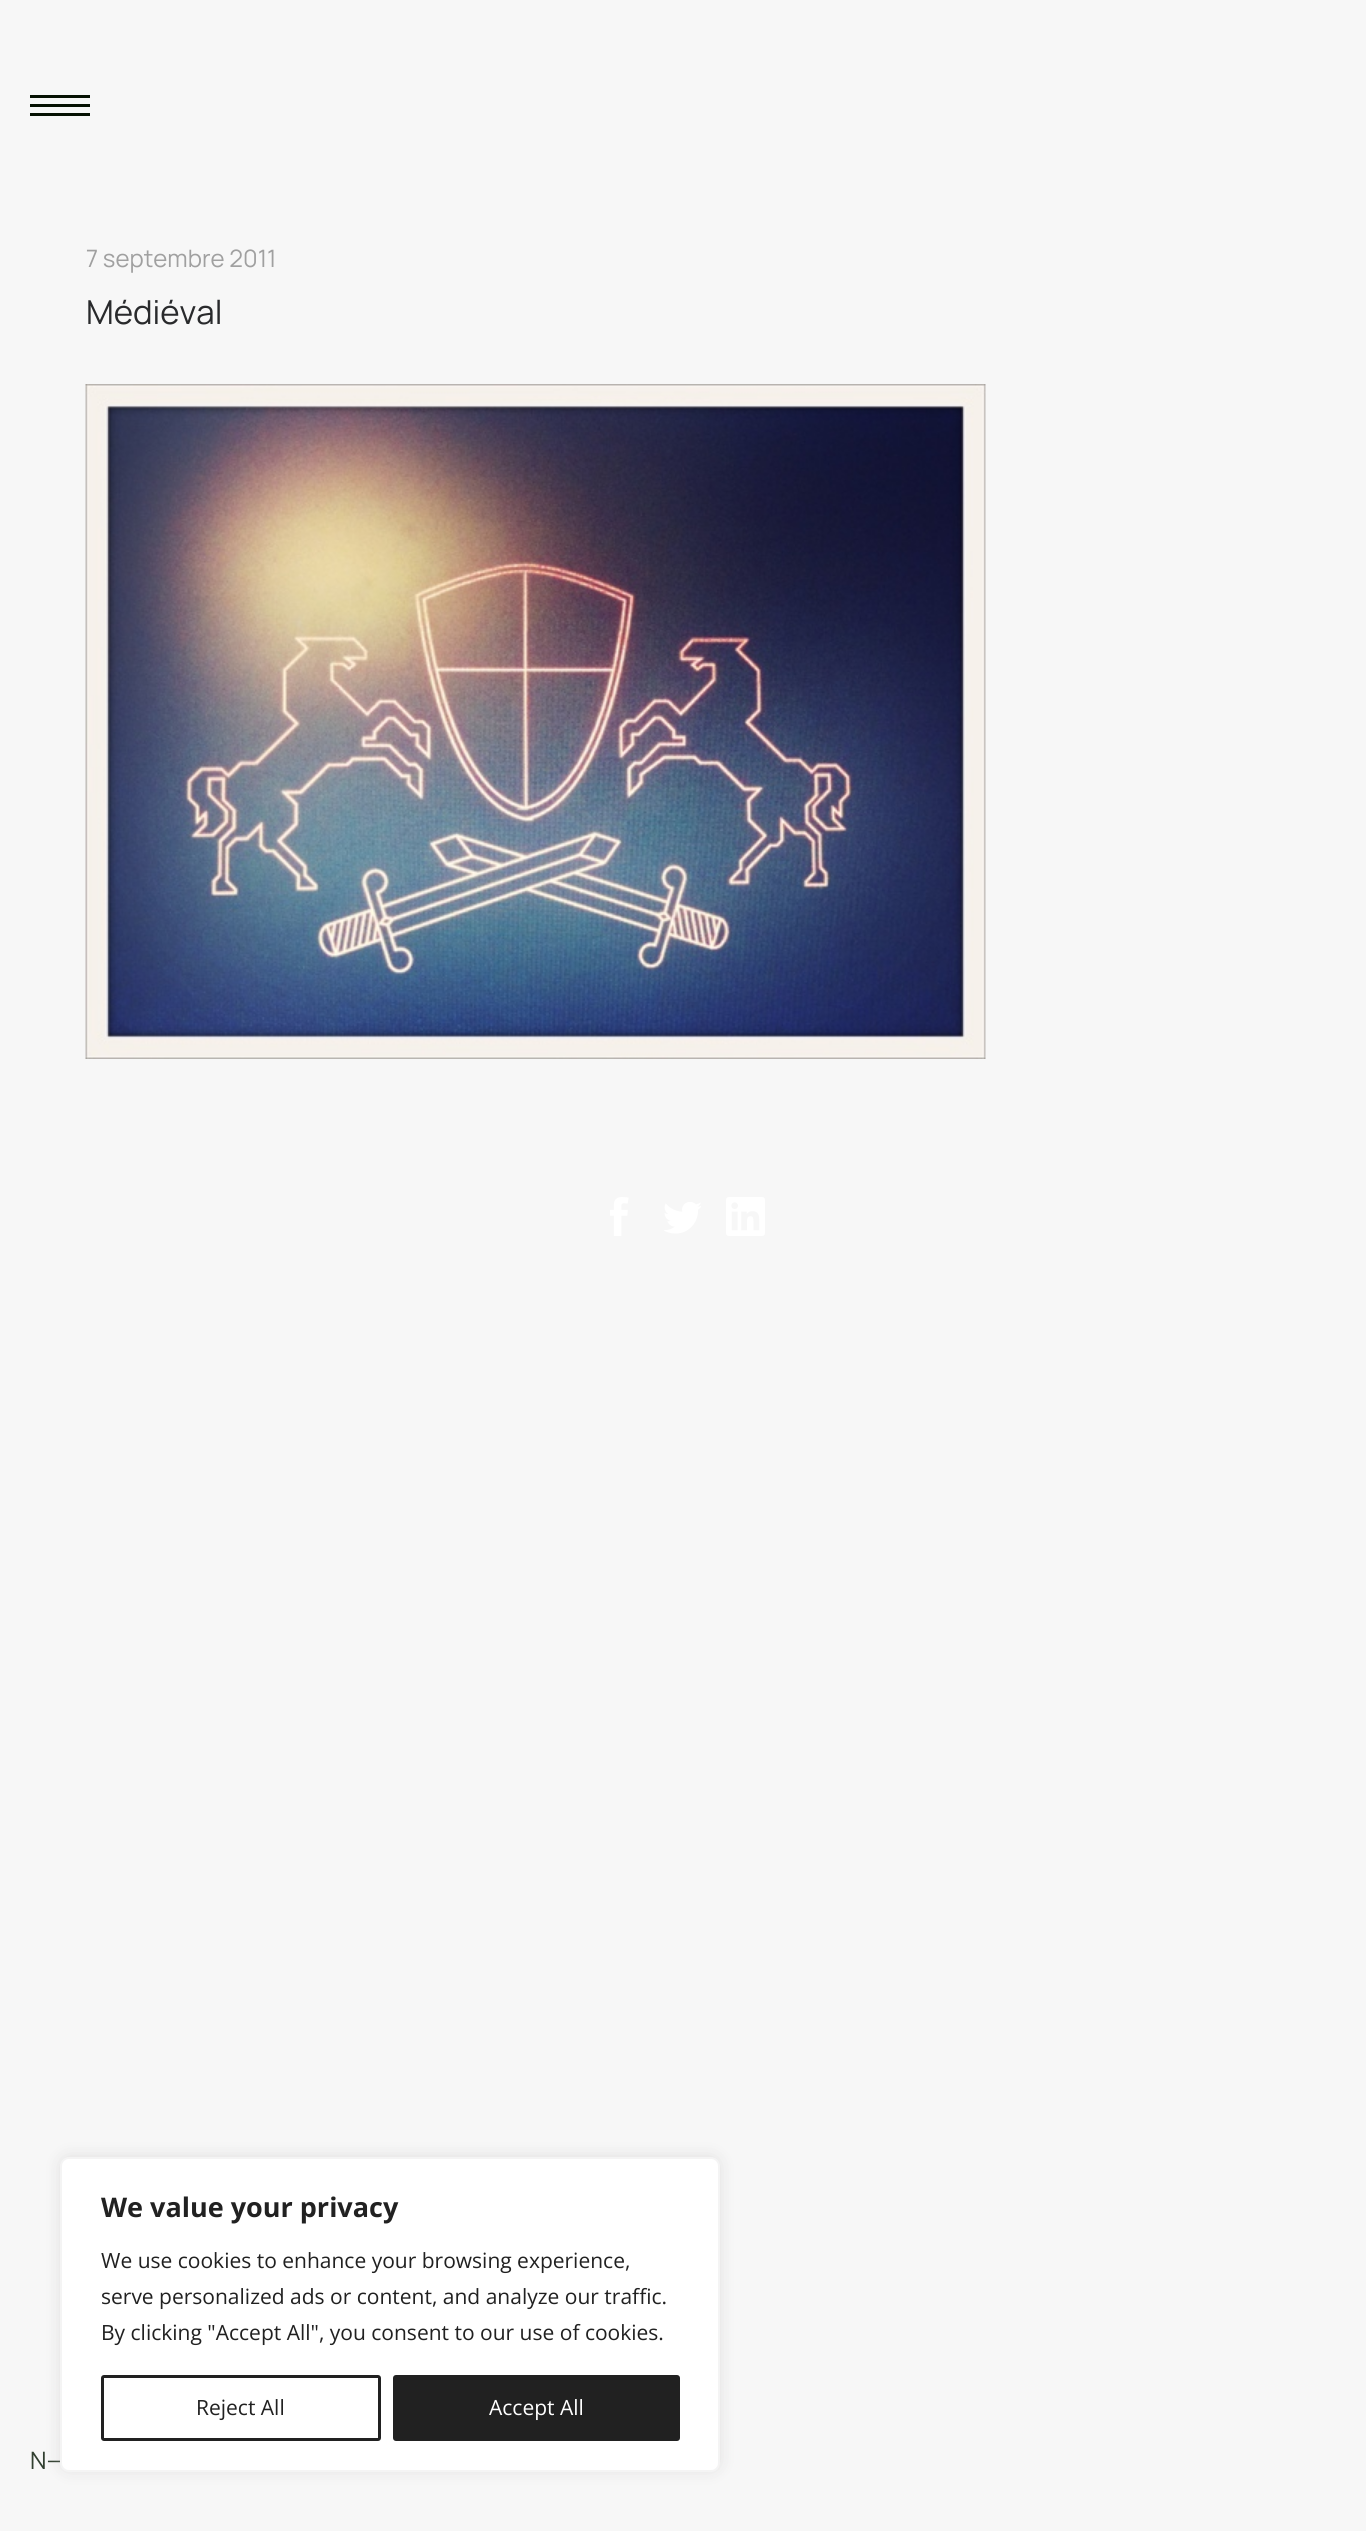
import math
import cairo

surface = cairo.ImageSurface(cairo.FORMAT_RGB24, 1366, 2531)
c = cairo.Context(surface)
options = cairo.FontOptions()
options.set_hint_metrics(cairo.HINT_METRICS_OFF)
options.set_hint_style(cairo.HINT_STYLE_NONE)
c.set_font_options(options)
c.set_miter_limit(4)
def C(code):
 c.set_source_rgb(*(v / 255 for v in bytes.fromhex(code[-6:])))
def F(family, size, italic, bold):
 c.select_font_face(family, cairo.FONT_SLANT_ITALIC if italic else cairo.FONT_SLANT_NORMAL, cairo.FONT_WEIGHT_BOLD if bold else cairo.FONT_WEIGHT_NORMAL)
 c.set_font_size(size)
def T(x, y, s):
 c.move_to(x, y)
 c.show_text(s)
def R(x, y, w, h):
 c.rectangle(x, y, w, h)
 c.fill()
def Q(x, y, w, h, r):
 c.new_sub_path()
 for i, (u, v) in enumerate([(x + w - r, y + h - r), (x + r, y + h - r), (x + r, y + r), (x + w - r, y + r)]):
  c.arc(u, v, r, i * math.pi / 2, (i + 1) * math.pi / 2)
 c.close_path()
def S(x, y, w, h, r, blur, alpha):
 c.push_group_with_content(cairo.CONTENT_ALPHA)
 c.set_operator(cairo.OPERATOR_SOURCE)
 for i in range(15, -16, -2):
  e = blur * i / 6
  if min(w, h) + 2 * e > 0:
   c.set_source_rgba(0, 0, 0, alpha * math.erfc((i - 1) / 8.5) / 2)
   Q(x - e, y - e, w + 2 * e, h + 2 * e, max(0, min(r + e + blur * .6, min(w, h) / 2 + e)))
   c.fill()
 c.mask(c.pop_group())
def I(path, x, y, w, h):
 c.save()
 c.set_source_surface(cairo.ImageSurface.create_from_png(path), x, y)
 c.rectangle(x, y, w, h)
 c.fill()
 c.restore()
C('f7f7f7')
c.paint()
C('051102')
R(30,104,60,3)
R(30,95,60,3)
R(30,113,60,3)
F('Manrope',24,0,0)
C('a0a0a0')
T(86,267,'7 septembre 2011')
F('Manrope',33,0,0)
C('292a2c')
T(86,324,'Médiéval')
I('1.png',85,384,901,675)
I('2.png',610,1197,19,39)
I('3.png',664,1202,37,32)
I('4.png',726,1197,39,39)
F('Manrope',24,0,0)
C('313f30')
T(30,2469,'N—')
C('acabab')
S(60,2156,660,315,9,7.5,.3)
C('ffffff')
Q(61,2158,658,313,8)
c.fill_preserve()
C('f4f4f4')
c.stroke()
F('Open Sans',27,0,1)
C('212121')
T(101,2217,'We value your privacy')
F('Open Sans',21,0,0)
T(101,2268,'We use cookies to enhance your browsing experience,')
T(101,2304,'serve personalized ads or content, and analyze our traffic.')
T(101,2340,'By clicking "Accept All", you consent to our use of cookies.')
Q(102.5,2376.5,277,63,1.5)
c.set_line_width(3)
c.stroke()
T(196,2415,'Reject All')
Q(394.5,2376.5,284,63,1.5)
c.fill_preserve()
c.stroke()
C('ffffff')
T(489,2415,'Accept All')
surface.write_to_png('o.png')
